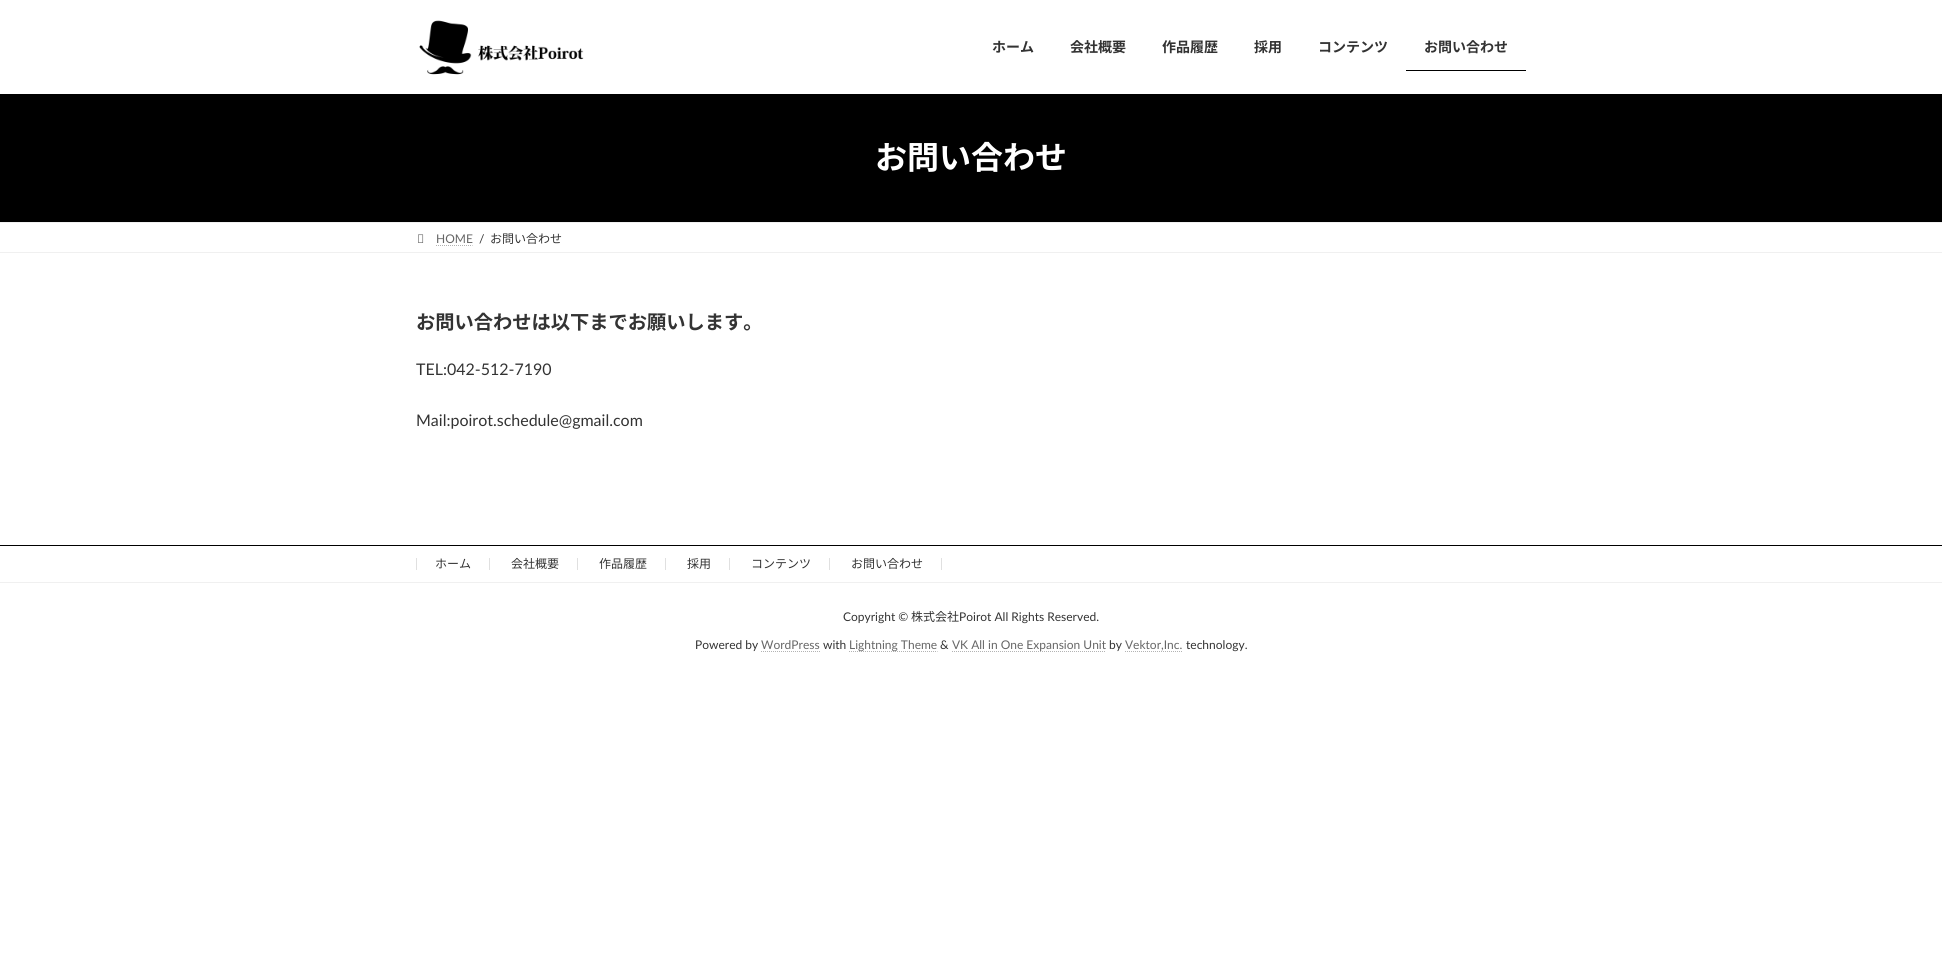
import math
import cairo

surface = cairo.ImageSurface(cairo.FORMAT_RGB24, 1942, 980)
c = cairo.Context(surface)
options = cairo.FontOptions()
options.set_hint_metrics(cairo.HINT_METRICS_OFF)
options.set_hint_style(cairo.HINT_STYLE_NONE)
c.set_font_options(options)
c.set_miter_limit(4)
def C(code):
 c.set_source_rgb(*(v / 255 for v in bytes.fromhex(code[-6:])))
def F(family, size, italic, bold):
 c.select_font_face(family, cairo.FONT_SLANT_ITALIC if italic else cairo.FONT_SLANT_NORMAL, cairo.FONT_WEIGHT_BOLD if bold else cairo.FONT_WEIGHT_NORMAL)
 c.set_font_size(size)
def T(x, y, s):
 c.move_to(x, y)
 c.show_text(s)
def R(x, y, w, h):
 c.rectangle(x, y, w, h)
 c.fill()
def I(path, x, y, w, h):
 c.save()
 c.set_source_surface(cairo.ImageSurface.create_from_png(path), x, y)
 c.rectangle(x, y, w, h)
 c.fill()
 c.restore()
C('ffffff')
c.paint()
I('1.png',419,20,165,55)
F('Noto Sans JP',14,0,1)
C('333333')
T(992,52,'ホーム')
T(1070,52,'会社概要')
T(1162,52,'作品履歴')
T(1254,52,'採用')
T(1318,52,'コンテンツ')
T(1424,52,'お問い合わせ')
C('000000')
R(1406,70,120,1)
R(0,94,1942,128)
F('Noto Sans JP',32,0,1)
C('ffffff')
T(875,169,'お問い合わせ')
C('f0f0f0')
R(0,222,1942,1)
R(0,252,1942,1)
I('2.png',418,234,6,9)
F('Lato',12,0,0)
C('666666')
T(436,243,'HOME')
c.new_path()
c.move_to(436,245.5)
c.line_to(472.5,245.5)
C('b3b3b3')
c.set_line_width(1)
c.set_dash([1,1])
c.stroke()
C('333333')
T(479,243,'/')
F('Noto Sans JP',12,0,0)
T(490,243,'お問い合わせ')
F('Noto Sans JP',19.25,0,1)
T(416,329,'お問い合わせは以下までお願いします。')
F('Lato',16,0,0)
T(416,375,'TEL:042-512-7190')
T(416,426,'Mail:poirot.schedule@gmail.com')
C('000000')
R(0,545,1942,1)
C('f0f0f0')
R(0,582,1942,1)
C('e0e0e0')
R(489,558,1,12)
R(416,558,1,12)
F('Noto Sans JP',12,0,0)
C('333333')
T(435,568,'ホーム')
C('e0e0e0')
R(577,558,1,12)
C('333333')
T(511,568,'会社概要')
C('e0e0e0')
R(665,558,1,12)
C('333333')
T(599,568,'作品履歴')
C('e0e0e0')
R(729,558,1,12)
C('333333')
T(687,568,'採用')
C('e0e0e0')
R(829,558,1,12)
C('333333')
T(751,568,'コンテンツ')
C('e0e0e0')
R(941,558,1,12)
C('333333')
T(851,568,'お問い合わせ')
F('Lato',12,0,0)
T(843,621,'Copyright ©')
F('Noto Sans JP',12,0,0)
T(911,621,'株式会社')
F('Lato',12,0,0)
T(959,621,'Poirot All Rights Reserved.')
T(695,649,'Powered by')
C('666666')
T(761,649,'WordPress')
c.new_path()
c.move_to(761,651.5)
c.line_to(820,651.5)
C('b3b3b3')
c.stroke()
C('333333')
T(823,649,'with')
c.new_path()
c.move_to(849,651.5)
c.line_to(937.5,651.5)
C('b3b3b3')
c.stroke()
C('666666')
T(849,649,'Lightning Theme')
C('333333')
T(940,649,'&')
c.new_path()
c.move_to(952,651.5)
c.line_to(1106,651.5)
C('b3b3b3')
c.stroke()
C('666666')
T(952,649,'VK All in One Expansion Unit')
C('333333')
T(1109,649,'by')
C('666666')
T(1125,649,'Vektor,Inc.')
c.new_path()
c.move_to(1125,651.5)
c.line_to(1182.5,651.5)
C('b3b3b3')
c.stroke()
C('333333')
T(1186,649,'technology.')
surface.write_to_png('o.png')
